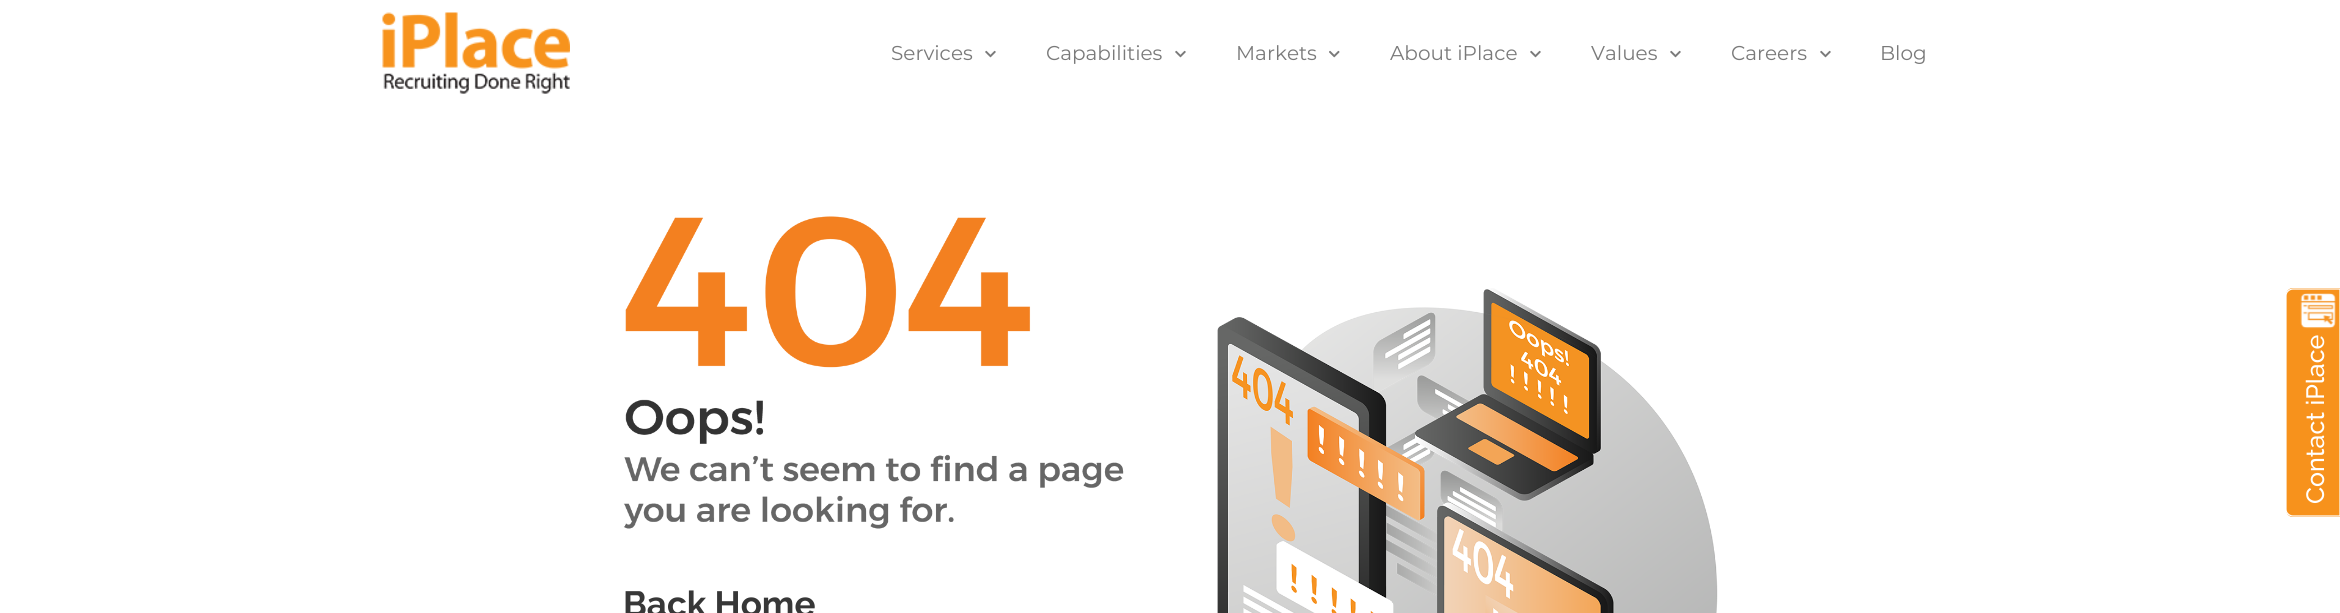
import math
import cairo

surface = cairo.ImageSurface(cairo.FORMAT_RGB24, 2340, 613)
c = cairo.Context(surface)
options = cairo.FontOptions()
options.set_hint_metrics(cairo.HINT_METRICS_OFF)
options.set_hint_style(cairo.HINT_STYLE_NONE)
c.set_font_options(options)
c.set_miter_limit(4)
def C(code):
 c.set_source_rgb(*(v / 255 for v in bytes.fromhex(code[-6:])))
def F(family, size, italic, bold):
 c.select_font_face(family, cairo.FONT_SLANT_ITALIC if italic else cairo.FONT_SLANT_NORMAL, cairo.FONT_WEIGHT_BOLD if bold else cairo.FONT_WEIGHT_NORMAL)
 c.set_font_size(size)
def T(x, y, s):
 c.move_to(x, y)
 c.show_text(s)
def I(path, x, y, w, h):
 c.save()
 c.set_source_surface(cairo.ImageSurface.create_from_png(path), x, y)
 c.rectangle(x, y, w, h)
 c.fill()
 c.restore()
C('ffffff')
c.paint()
I('1.png',382,12,188,82)
F('Montserrat',20,0,0)
C('7a7a7a')
T(891,60,'Services')
I('2.png',985,50,11,8)
T(1046,60,'Capabilities')
I('2.png',1175,50,11,8)
T(1236,60,'Markets')
I('3.png',1329,50,11,8)
T(1390,60,'About iPlace')
I('2.png',1530,50,11,8)
T(1591,60,'Values')
I('2.png',1670,50,11,8)
T(1731,60,'Careers')
I('2.png',1820,50,11,8)
T(1880,60,'Blog')
C('f7921c')
c.new_path()
c.move_to(2286,509)
c.line_to(2286,296)
c.curve_to(2286,291,2289,288,2293,288)
c.line_to(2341,288)
c.line_to(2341,517)
c.line_to(2293,517)
c.curve_to(2289,517,2286,514,2286,509)
c.close_path()
c.fill()
c.new_path()
c.move_to(2286,509.5)
c.line_to(2286,295.5)
c.curve_to(2286,292,2289.5,289,2293,289)
c.line_to(2340,289)
c.line_to(2340,516)
c.line_to(2293,516)
c.curve_to(2289.5,516,2286,513,2286,509.5)
c.close_path()
C('ffffff')
c.set_line_width(1.2)
c.stroke()
I('4.png',2300,293,36,36)
F('Raleway Medium',25,0,0)
c.save()
c.translate(2324,504)
c.rotate(-90 * math.pi / 180)
T(0,0,'Contact iPlace')
c.restore()
I('5.png',623,216,501,313)
F('Raleway',35,0,1)
C('373737')
T(623,616,'Back Home')
I('6.png',1217,288,501,325)
surface.write_to_png('o.png')
